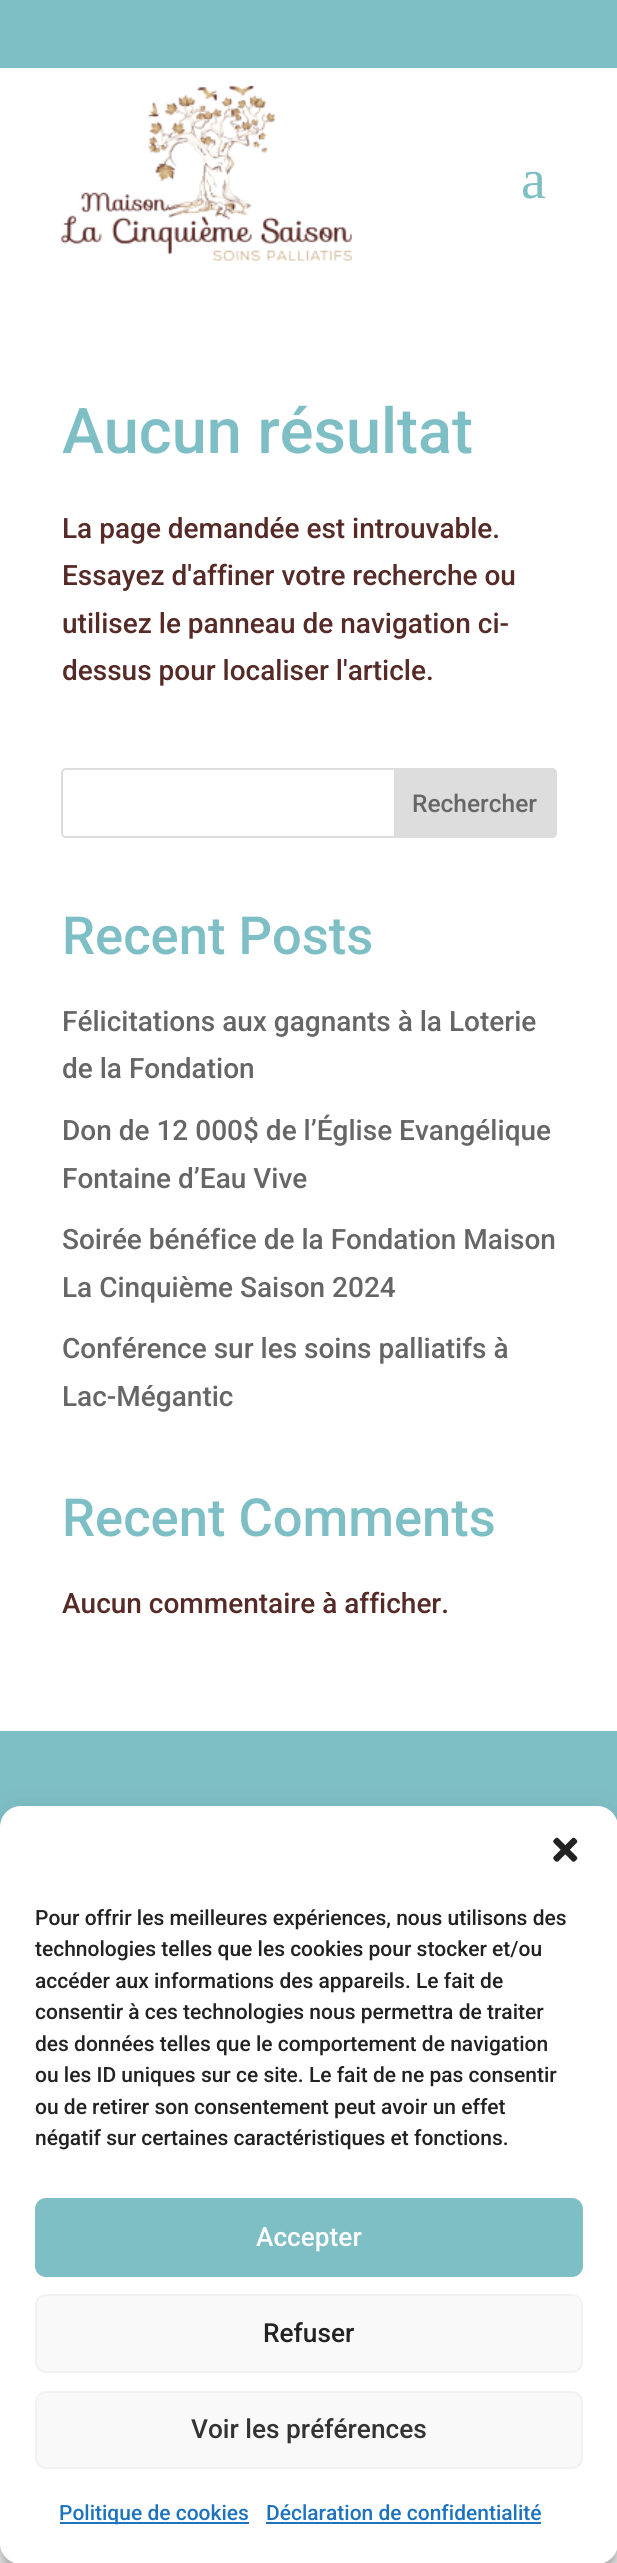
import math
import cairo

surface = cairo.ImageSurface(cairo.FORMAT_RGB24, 617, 2563)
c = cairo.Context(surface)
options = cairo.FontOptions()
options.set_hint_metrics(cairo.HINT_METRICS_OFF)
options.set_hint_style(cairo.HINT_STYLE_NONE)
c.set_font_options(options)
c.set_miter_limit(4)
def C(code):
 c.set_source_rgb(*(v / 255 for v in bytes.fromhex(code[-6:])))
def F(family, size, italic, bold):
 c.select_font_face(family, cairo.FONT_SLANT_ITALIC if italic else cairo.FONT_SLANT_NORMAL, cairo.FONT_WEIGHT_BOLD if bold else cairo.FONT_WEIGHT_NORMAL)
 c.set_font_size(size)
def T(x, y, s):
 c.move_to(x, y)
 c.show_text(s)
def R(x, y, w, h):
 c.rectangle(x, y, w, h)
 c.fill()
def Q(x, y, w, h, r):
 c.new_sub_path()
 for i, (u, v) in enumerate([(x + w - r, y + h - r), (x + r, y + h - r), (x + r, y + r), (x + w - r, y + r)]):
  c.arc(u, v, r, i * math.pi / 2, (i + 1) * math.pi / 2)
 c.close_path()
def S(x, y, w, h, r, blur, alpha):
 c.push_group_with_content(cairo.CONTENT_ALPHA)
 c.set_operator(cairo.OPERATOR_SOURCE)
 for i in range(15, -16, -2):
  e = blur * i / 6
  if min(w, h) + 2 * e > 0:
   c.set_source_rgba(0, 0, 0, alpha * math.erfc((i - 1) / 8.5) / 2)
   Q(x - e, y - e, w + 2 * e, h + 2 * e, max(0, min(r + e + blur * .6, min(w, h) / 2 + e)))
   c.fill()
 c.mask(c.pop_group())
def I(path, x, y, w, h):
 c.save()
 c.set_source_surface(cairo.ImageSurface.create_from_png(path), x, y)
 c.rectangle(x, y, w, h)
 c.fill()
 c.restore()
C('ffffff')
c.paint()
C('7ebec5')
R(0,0,617,68)
I('1.png',61,85,291,176)
F('Liberation Serif',56,0,0)
T(521,198,'a')
F('Roboto Medium',63,0,0)
T(62,453,'Aucun résultat')
F('Roboto Medium',28,0,0)
C('562a26')
T(62,538,'La page demandée est introuvable.')
T(62,585,'Essayez d\'affiner votre recherche ou')
T(62,633,'utilisez le panneau de navigation ci-')
T(62,680,'dessus pour localiser l\'article.')
Q(62,769,494,68,4)
C('dddddd')
c.stroke()
c.new_path()
c.move_to(395,769)
c.line_to(552,769)
c.curve_to(554,769,556,771,556,773)
c.line_to(556,833)
c.curve_to(556,835,554,837,552,837)
c.line_to(395,837)
c.close_path()
c.fill_preserve()
c.stroke()
F('Roboto Medium',24.5,0,0)
C('666666')
T(412,812,'Rechercher')
F('Roboto Medium',52.5,0,0)
C('7ebec5')
T(62,954,'Recent Posts')
F('Roboto Medium',28,0,0)
C('666666')
T(62,1031,'Félicitations aux gagnants à la Loterie')
T(62,1078,'de la Fondation')
T(62,1140,'Don de 12 000$ de l’Église Evangélique')
T(62,1188,'Fontaine d’Eau Vive')
T(62,1249,'Soirée bénéfice de la Fondation Maison')
T(62,1297,'La Cinquième Saison 2024')
T(62,1358,'Conférence sur les soins palliatifs à')
T(62,1406,'Lac-Mégantic')
F('Roboto Medium',52.5,0,0)
C('7ebec5')
T(62,1536,'Recent Comments')
F('Roboto Medium',28,0,0)
C('562a26')
T(62,1613,'Aucun commentaire à afficher.')
C('7ebec5')
R(0,1731,617,96)
C('000000')
S(0,1817,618,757,21,5,.23)
S(0,1824,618,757,21,17.5,.19)
C('ffffff')
Q(0,1806,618,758,21)
c.fill()
I('2.png',553,1837,25,25)
F('Roboto Medium',21,0,0)
C('222222')
T(35,1925,'Pour offrir les meilleures expériences, nous utilisons des')
T(35,1956,'technologies telles que les cookies pour stocker et/ou')
T(35,1988,'accéder aux informations des appareils. Le fait de')
T(35,2019,'consentir à ces technologies nous permettra de traiter')
T(35,2051,'des données telles que le comportement de navigation')
T(35,2082,'ou les ID uniques sur ce site. Le fait de ne pas consentir')
T(35,2114,'ou de retirer son consentement peut avoir un effet')
T(35,2145,'négatif sur certaines caractéristiques et fonctions.')
C('7ebec5')
Q(36,2199,546,77,10)
c.fill_preserve()
c.stroke()
F('Roboto Medium',26.25,0,0)
C('ffffff')
T(256,2246,'Accepter')
C('f9f9f9')
Q(36,2295,546,77,10)
c.fill_preserve()
C('f2f2f2')
c.stroke()
C('222222')
T(263,2342,'Refuser')
C('f9f9f9')
Q(36,2392,546,76,10)
c.fill_preserve()
C('f2f2f2')
c.stroke()
C('333333')
T(191,2438,'Voir les préférences')
C('1e73be')
R(60,2522,189,2)
F('Roboto Medium',21,0,0)
T(59,2520,'Politique de cookies')
T(266,2520,'Déclaration de confidentialité')
R(266,2522,275,2)
surface.write_to_png('o.png')
